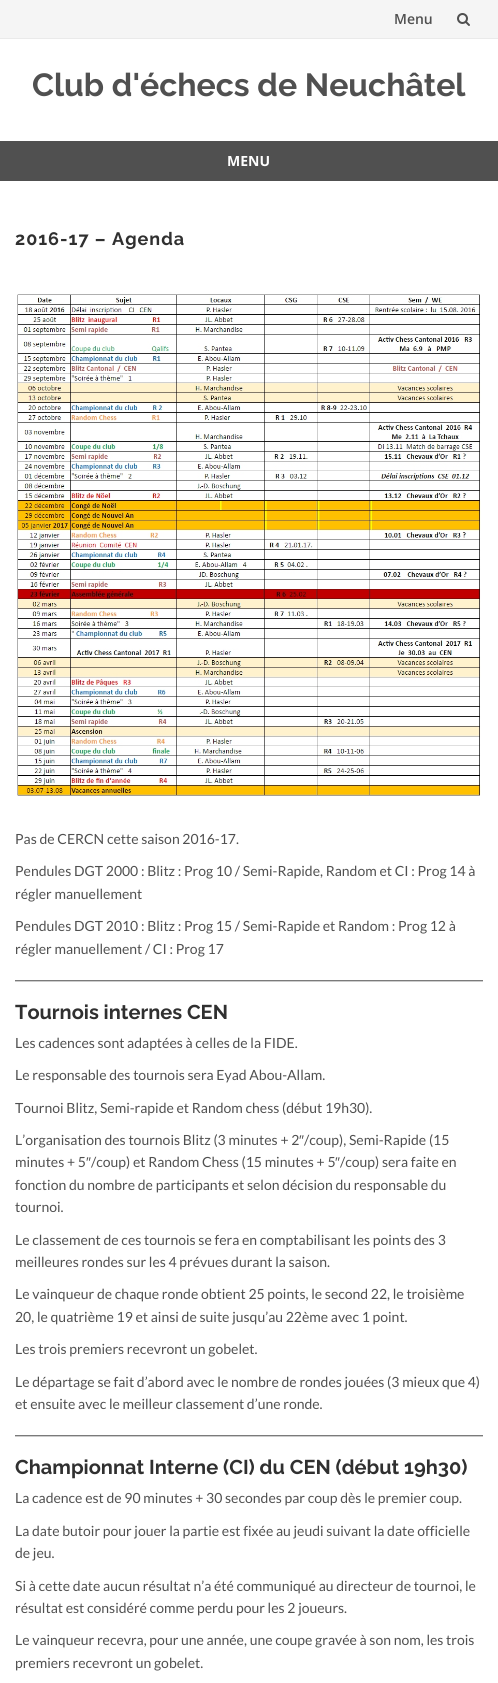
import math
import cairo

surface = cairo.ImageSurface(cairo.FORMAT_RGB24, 498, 1683)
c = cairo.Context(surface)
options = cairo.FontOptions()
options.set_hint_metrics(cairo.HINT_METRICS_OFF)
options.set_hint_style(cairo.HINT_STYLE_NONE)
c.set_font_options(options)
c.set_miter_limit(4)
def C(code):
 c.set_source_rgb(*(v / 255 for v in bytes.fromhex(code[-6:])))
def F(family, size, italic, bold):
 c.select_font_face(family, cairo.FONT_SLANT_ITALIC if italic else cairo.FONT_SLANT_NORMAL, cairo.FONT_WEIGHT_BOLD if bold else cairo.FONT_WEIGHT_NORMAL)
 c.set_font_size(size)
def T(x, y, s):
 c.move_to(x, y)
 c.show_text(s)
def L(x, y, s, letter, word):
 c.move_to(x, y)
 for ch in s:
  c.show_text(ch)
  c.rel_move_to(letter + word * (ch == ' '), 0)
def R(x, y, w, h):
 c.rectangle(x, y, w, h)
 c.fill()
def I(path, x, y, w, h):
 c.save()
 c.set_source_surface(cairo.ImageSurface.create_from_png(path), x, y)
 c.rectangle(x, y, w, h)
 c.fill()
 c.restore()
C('ffffff')
c.paint()
C('f5f5f5')
R(0,0,498,38)
C('eaeaea')
R(0,38,498,1)
F('Open Sans SemiBold',14,0,0)
C('505050')
T(394,24,'Menu')
I('1.png',457,13,13,13)
F('Raleway',32,0,1)
T(32,96,'Club d\'échecs de Neuchâtel')
R(0,141,498,40)
F('Open Sans',14,0,1)
C('ffffff')
T(227,166,'MENU')
F('Raleway',18,0,1)
C('303030')
L(15,245,'2016-17 – Agenda',1,0)
I('2.png',17,294,464,502)
F('Lato',14,0,0)
C('505050')
T(15,844,'Pas de CERCN cette saison 2016-17.')
T(15,876,'Pendules DGT 2000 : Blitz : Prog 10 / Semi-Rapide, Random et CI : Prog 14 à')
T(15,899,'régler manuellement')
T(15,931,'Pendules DGT 2010 : Blitz : Prog 15 / Semi-Rapide et Random : Prog 12 à')
T(15,954,'régler manuellement / CI : Prog 17')
C('cccccc')
R(15,981,468,1)
C('7a7a7a')
R(15,980,468,1)
F('Raleway',20,0,1)
C('303030')
T(15,1019,'Tournois internes CEN')
F('Lato',14,0,0)
C('505050')
T(15,1048,'Les cadences sont adaptées à celles de la FIDE.')
T(15,1080,'Le responsable des tournois sera Eyad Abou-Allam.')
T(15,1113,'Tournoi Blitz, Semi-rapide et Random chess (début 19h30).')
T(15,1145,'L’organisation des tournois Blitz (3 minutes + 2')
F('Liberation Sans',14,0,0)
T(299,1145,'″')
F('Lato',14,0,0)
T(304,1145,'/coup), Semi-Rapide (15')
T(15,1167,'minutes + 5')
F('Liberation Sans',14,0,0)
T(86,1167,'″')
F('Lato',14,0,0)
T(91,1167,'/coup) et Random Chess (15 minutes + 5')
F('Liberation Sans',14,0,0)
T(335,1167,'″')
F('Lato',14,0,0)
T(340,1167,'/coup) sera faite en')
T(15,1190,'fonction du nombre de participants et selon décision du responsable du')
T(15,1212,'tournoi.')
T(15,1245,'Le classement de ces tournois se fera en comptabilisant les points des 3')
T(15,1267,'meilleures rondes sur les 4 prévues durant la saison.')
T(15,1299,'Le vainqueur de chaque ronde obtient 25 points, le second 22, le troisième')
T(15,1322,'20, le quatrième 19 et ainsi de suite jusqu’au 22ème avec 1 point.')
T(15,1354,'Les trois premiers recevront un gobelet.')
T(15,1387,'Le départage se fait d’abord avec le nombre de rondes jouées (3 mieux que 4)')
T(15,1409,'et ensuite avec le meilleur classement d’une ronde.')
C('cccccc')
R(15,1436,468,1)
C('7a7a7a')
R(15,1435,468,1)
F('Raleway',20,0,1)
C('303030')
T(15,1474,'Championnat Interne (CI) du CEN (début 19h30)')
F('Lato',14,0,0)
C('505050')
T(15,1503,'La cadence est de 90 minutes + 30 secondes par coup dès le premier coup.')
T(15,1536,'La date butoir pour jouer la partie est fixée au jeudi suivant la date officielle')
T(15,1558,'de jeu.')
T(15,1591,'Si à cette date aucun résultat n’a été communiqué au directeur de tournoi, le')
T(15,1613,'résultat est considéré comme perdu pour les 2 joueurs.')
T(15,1645,'Le vainqueur recevra, pour une année, une coupe gravée à son nom, les trois')
T(15,1668,'premiers recevront un gobelet.')
surface.write_to_png('o.png')
